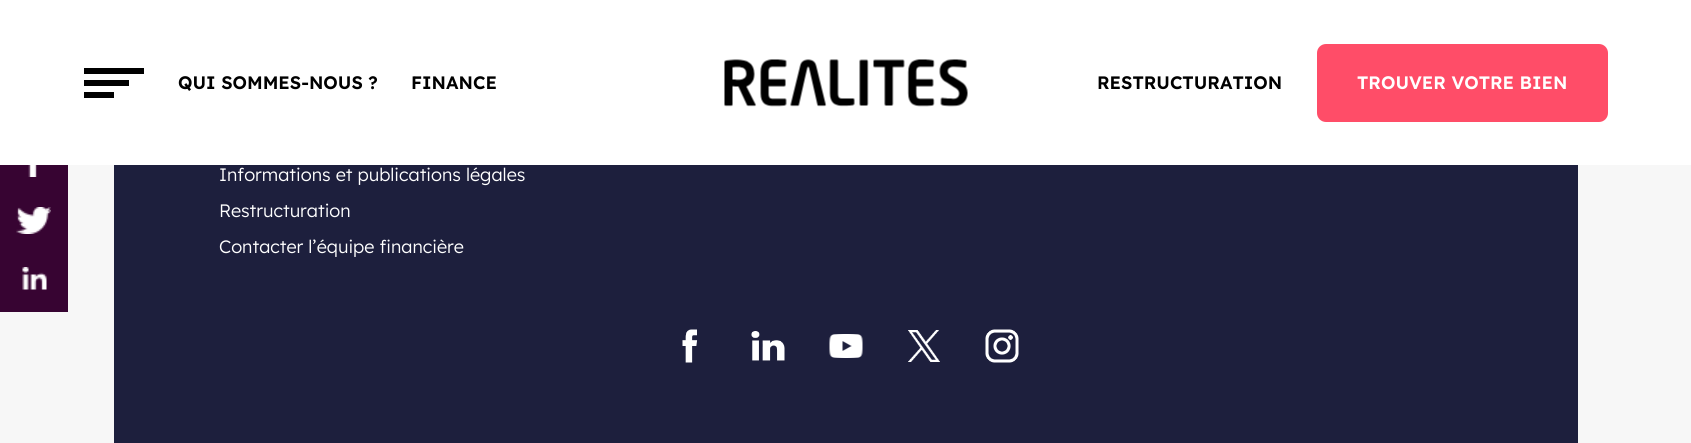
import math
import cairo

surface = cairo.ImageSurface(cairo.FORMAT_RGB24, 1691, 443)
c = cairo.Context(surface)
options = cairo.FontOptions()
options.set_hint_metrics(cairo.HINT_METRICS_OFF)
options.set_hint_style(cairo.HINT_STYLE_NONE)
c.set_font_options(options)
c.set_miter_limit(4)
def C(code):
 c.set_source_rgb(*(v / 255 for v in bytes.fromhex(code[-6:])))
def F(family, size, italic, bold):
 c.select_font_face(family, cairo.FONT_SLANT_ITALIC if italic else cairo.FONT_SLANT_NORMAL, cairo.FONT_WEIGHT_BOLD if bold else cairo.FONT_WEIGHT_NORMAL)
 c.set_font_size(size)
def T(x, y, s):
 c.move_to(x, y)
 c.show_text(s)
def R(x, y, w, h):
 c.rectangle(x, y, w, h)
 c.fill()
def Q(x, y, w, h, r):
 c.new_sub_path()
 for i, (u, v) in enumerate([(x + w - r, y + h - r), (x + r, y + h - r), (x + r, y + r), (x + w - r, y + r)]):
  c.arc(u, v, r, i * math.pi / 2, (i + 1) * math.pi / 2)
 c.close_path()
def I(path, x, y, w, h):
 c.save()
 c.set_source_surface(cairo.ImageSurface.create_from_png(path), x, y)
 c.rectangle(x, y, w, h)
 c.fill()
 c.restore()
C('f7f7f7')
c.paint()
C('ffffff')
R(0,0,1691,165)
C('000000')
R(84,68,60,6)
R(84,80,45,6)
R(84,92,30,6)
F('Lexend SemiBold',18,0,0)
T(178,89,'QUI SOMMES-NOUS ?')
T(411,89,'FINANCE')
I('1.png',724,59,244,48)
T(1097,89,'RESTRUCTURATION')
C('ff4d68')
Q(1318,45,289,76,8)
c.fill_preserve()
c.stroke()
C('ffffff')
T(1357,89,'TROUVER VOTRE BIEN')
C('370432')
R(0,165,68,147)
I('2.png',28,165,9,12)
I('3.png',16,207,35,27)
I('4.png',22,267,25,23)
C('1d1f3d')
R(114,165,1464,278)
F('Lexend Light',18,0,0)
C('ffffff')
T(219,181,'Informations et publications légales')
T(219,217,'Restructuration')
T(219,253,'Contacter l’équipe financière')
I('5.png',682,329,16,34)
I('6.png',751,331,34,30)
I('7.png',829,334,34,24)
I('8.png',908,330,32,32)
I('9.png',985,329,34,34)
surface.write_to_png('o.png')
